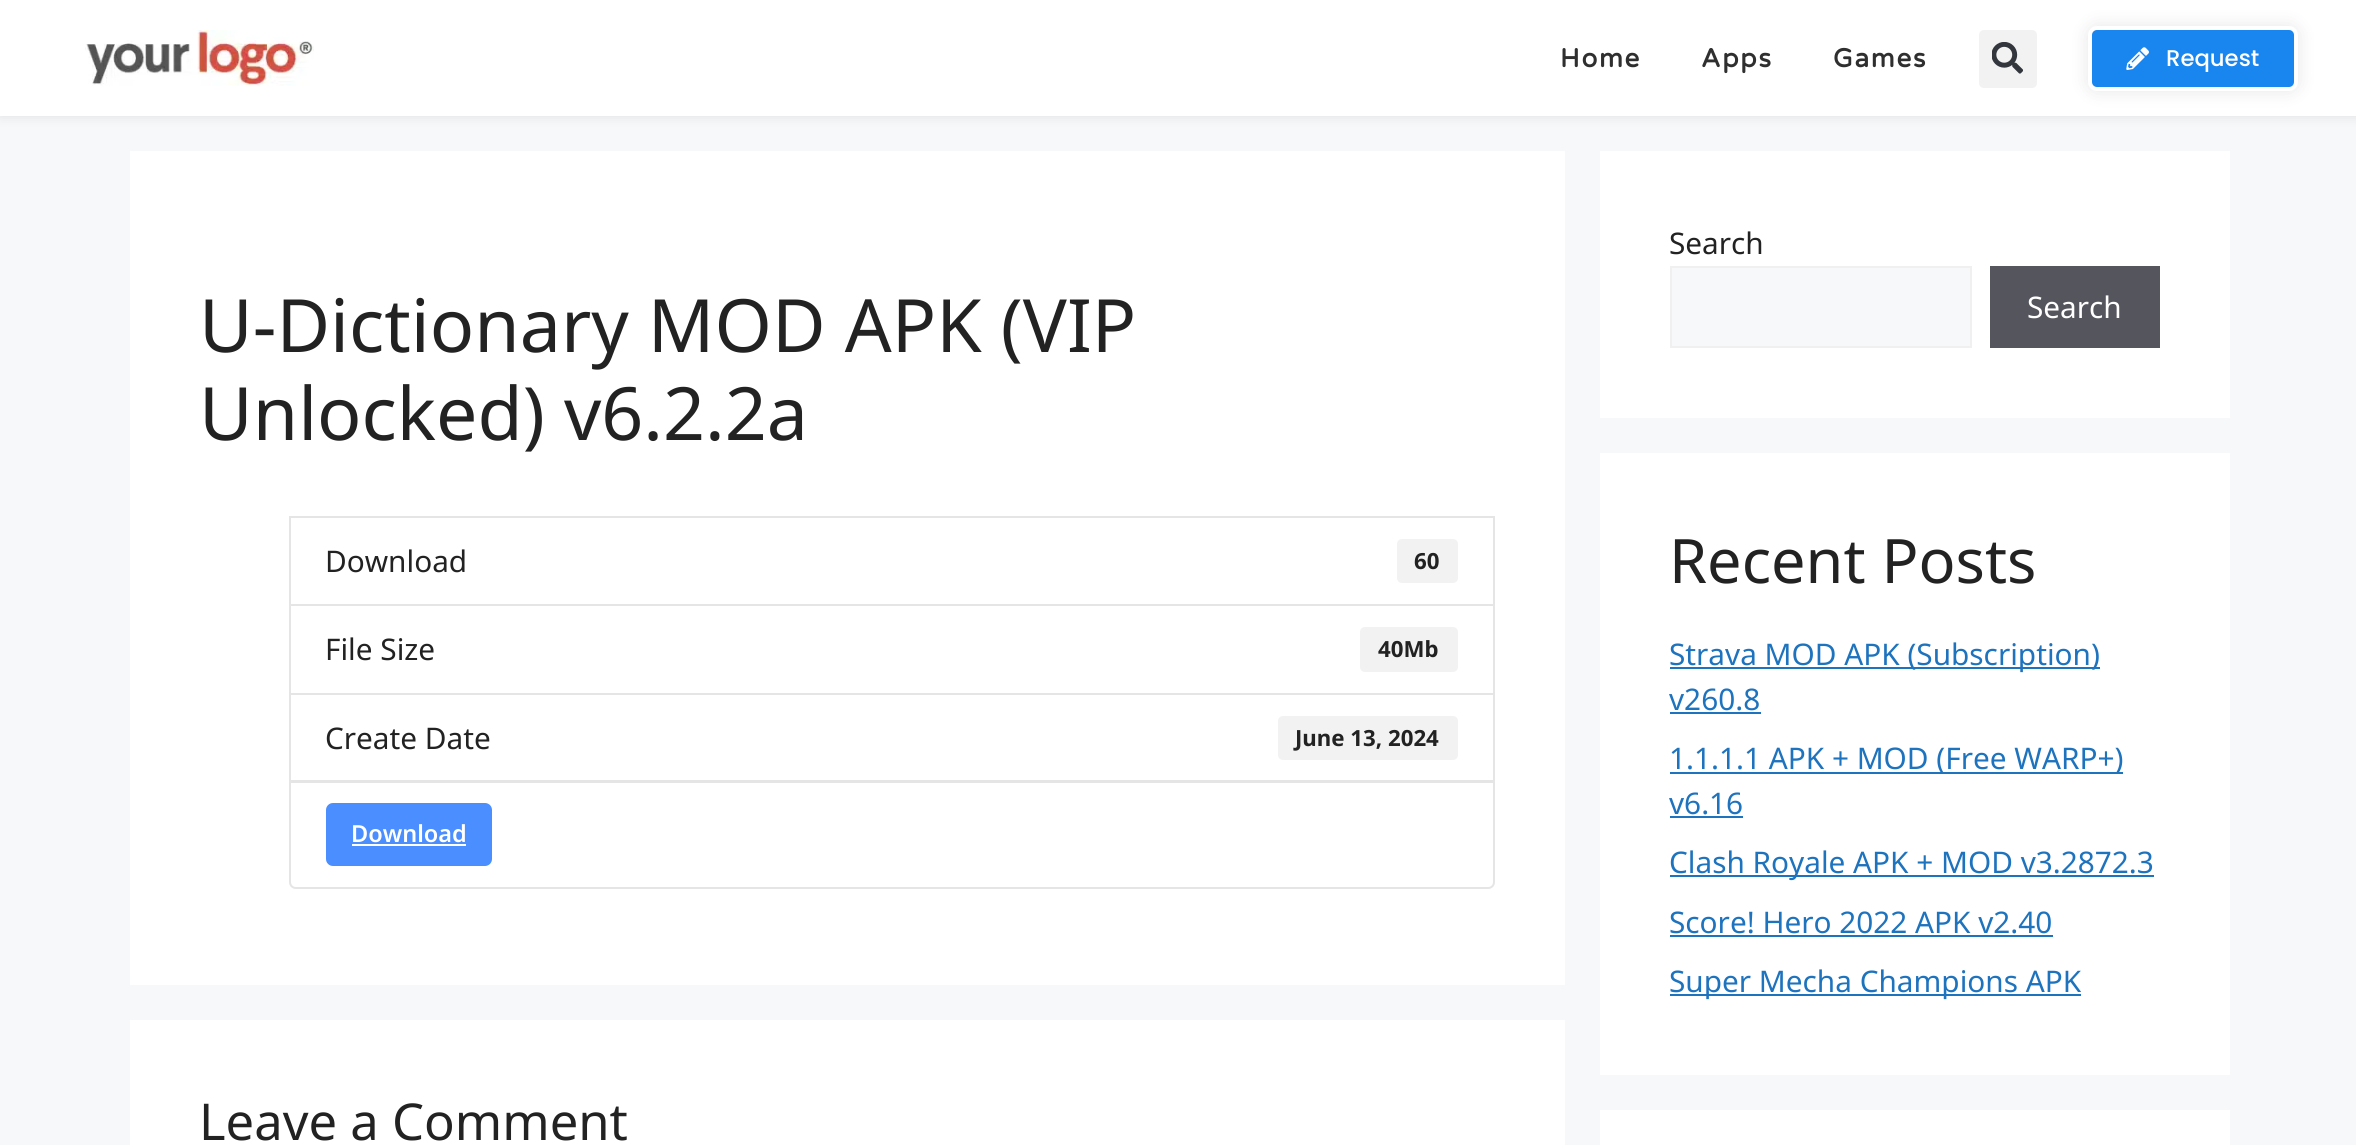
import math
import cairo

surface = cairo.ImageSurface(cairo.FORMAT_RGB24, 2356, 1145)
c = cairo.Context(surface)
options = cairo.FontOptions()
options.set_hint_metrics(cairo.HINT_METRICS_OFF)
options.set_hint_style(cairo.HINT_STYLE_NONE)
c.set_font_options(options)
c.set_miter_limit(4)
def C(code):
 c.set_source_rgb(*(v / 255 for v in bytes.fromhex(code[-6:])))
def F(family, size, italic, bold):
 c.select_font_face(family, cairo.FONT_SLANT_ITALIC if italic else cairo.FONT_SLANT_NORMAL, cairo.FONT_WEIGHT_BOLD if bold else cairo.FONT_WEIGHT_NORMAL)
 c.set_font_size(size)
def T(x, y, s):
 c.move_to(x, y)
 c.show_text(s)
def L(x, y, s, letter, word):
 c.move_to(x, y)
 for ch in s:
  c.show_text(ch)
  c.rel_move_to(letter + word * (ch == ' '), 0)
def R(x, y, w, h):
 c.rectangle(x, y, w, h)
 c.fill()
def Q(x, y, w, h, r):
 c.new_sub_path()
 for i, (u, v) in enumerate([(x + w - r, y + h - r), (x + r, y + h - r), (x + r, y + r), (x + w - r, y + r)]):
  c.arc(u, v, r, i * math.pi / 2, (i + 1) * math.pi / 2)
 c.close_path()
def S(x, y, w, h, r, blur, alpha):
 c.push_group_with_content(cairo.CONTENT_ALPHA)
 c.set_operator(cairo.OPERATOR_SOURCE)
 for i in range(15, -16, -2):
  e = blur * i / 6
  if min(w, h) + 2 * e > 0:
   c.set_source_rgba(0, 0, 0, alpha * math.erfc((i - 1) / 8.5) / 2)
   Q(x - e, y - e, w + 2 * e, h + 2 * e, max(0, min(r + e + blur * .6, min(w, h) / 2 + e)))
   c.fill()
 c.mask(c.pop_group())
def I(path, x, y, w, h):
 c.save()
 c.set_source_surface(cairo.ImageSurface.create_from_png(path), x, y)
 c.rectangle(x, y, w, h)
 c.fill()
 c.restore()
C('f7f8f9')
c.paint()
C('000000')
S(0,0,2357,116,0,6,.1)
C('ffffff')
R(0,0,2356,116)
I('1.png',85,30,229,56)
F('Varela Round',26,0,1)
C('2f2f2f')
L(1560,67,'Home',1.75,0)
L(1701,67,'Apps',1.75,0)
L(1833,67,'Games',1.75,0)
C('f2f2f2')
Q(1979,30,58,58,5)
c.fill()
I('2.png',1992,42,31,32)
C('000000')
S(2088,26,210,65,9,9,.1)
C('1985ef')
Q(2090,28,206,61,7)
c.fill_preserve()
C('ffffff')
c.set_line_width(4)
c.stroke()
I('3.png',2126,47,23,23)
F('Poppins Medium',22.75,0,0)
T(2166,66,'Request')
R(130,151,1435,834)
F('Noto Sans',73.5,0,0)
C('222222')
T(199,352,'U-Dictionary MOD APK (VIP')
T(199,440,'Unlocked) v6.2.2a')
c.rectangle(290,517,1204,88)
C('e5e5e5')
c.set_line_width(2)
c.stroke()
F('Noto Sans',29.75,0,0)
C('222222')
T(325,572,'Download')
C('f2f2f2')
Q(1397,539,61,44,5)
c.fill()
F('Noto Sans',22.25,0,1)
C('222222')
T(1414,569,'60')
c.rectangle(290,605,1204,89)
C('e5e5e5')
c.stroke()
F('Noto Sans',29.75,0,0)
C('222222')
T(325,660,'File Size')
C('f2f2f2')
Q(1360,627,98,45,5)
c.fill()
F('Noto Sans',22.25,0,1)
C('222222')
T(1378,657,'40Mb')
c.rectangle(290,694,1204,87)
C('e5e5e5')
c.stroke()
F('Noto Sans',29.75,0,0)
C('222222')
T(325,749,'Create Date')
C('f2f2f2')
Q(1278,716,180,44,5)
c.fill()
F('Noto Sans',22.25,0,1)
C('222222')
T(1295,746,'June 13, 2024')
C('ffffff')
c.new_path()
c.move_to(290,782)
c.line_to(1494,782)
c.line_to(1494,882)
c.curve_to(1494,885.5,1491.5,888,1488,888)
c.line_to(296,888)
c.curve_to(292.5,888,290,885.5,290,882)
c.close_path()
c.fill_preserve()
C('e5e5e5')
c.stroke()
C('4a8eff')
Q(326,803,166,63,7)
c.fill()
F('Noto Sans SemiBold',23.5,0,0)
C('ffffff')
T(351,842,'Download')
R(352,844,114,2)
R(130,1020,1435,125)
F('Noto Sans',50.75,0,0)
C('222222')
T(199,1140,'Leave a Comment')
C('ffffff')
R(1600,151,630,267)
F('Noto Sans',29.75,0,0)
C('222222')
T(1669,254,'Search')
C('f7f8f9')
c.rectangle(1671,267,300,80)
c.fill_preserve()
C('f0f0f0')
c.stroke()
C('55555e')
R(1990,266,170,82)
C('ffffff')
T(2027,318,'Search')
R(1600,453,630,622)
F('Noto Sans',61.25,0,0)
C('222222')
T(1669,583,'Recent Posts')
C('1e73be')
R(1670,667,430,2)
F('Noto Sans',29.75,0,0)
T(1669,665,'Strava MOD APK (Subscription)')
T(1669,710,'v260.8')
R(1670,712,91,2)
R(1670,772,453,2)
T(1669,769,'1.1.1.1 APK + MOD (Free WARP+)')
T(1669,814,'v6.16')
R(1670,816,73,2)
R(1670,875,484,2)
T(1669,873,'Clash Royale APK + MOD v3.2872.3')
T(1669,933,'Score! Hero 2022 APK v2.40')
R(1670,935,383,2)
R(1670,994,411,2)
T(1669,992,'Super Mecha Champions APK')
C('ffffff')
R(1600,1110,630,35)
surface.write_to_png('o.png')
